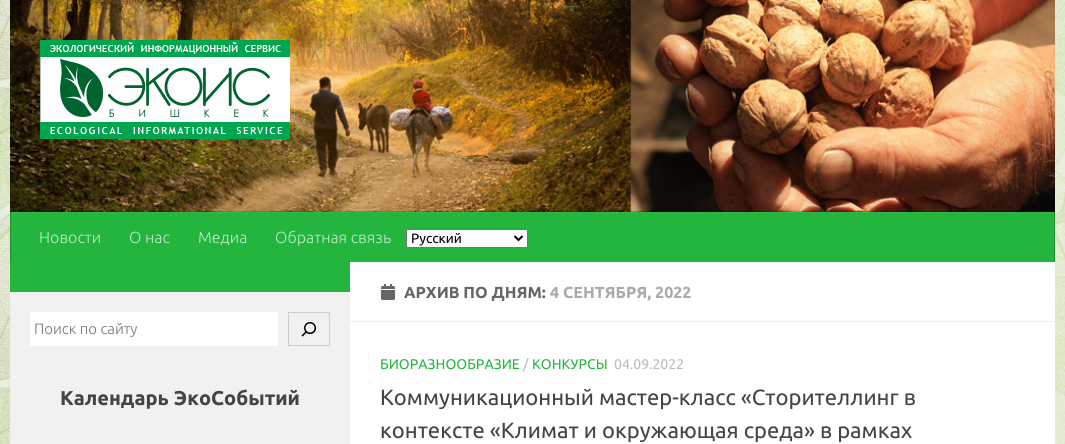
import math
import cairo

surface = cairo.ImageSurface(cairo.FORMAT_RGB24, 1065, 444)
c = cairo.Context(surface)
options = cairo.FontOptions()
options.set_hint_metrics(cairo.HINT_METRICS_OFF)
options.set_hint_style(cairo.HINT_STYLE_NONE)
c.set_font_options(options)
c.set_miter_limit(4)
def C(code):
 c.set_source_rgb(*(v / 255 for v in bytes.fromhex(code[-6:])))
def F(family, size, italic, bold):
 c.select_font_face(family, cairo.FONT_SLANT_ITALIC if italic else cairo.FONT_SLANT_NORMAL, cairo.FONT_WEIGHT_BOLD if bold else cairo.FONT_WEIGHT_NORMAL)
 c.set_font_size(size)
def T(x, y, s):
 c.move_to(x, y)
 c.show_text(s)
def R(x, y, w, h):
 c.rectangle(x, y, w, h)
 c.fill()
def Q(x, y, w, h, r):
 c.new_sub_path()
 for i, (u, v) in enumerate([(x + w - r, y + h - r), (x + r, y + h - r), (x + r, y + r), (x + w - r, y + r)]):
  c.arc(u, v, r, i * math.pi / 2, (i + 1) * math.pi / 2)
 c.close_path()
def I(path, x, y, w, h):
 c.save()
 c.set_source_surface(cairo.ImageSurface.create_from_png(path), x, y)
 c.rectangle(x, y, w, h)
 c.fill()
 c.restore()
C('ffffff')
c.paint()
I('1.png',0,0,1065,444)
I('2.png',10,0,1045,212)
I('3.png',40,40,250,99)
c.set_source_rgba(0,0,0,0.2)
R(10,211,1007,1)
C('24b53e')
R(11,212,1043,50)
C('1d9132')
R(1054,212,1,50)
R(10,212,1,50)
c.set_source_rgba(1,1,1,0.05)
R(10,212,1045,1)
F('Ubuntu Light',16,0,0)
C('bde9c5')
T(39,243,'Новости')
T(129,243,'О нас')
T(198,243,'Медиа')
T(275,243,'Обратная связь')
C('ffffff')
Q(406.5,229.5,121,18,1.5)
c.fill_preserve()
C('767676')
c.set_line_width(1)
c.stroke()
c.new_path()
c.move_to(514.5,236)
c.line_to(518.5,240)
c.line_to(522.5,236)
C('000000')
c.set_line_width(2)
c.stroke()
F('Ubuntu',13.5,0,0)
T(411,243,'Русский')
C('ffffff')
R(350,262,705,182)
C('24b53e')
R(10,262,340,30)
C('f1f1f1')
R(10,292,340,152)
C('ffffff')
R(30,312,248,34)
F('Ubuntu Light',15,0,0)
C('757575')
T(34,334,'Поиск по сайту')
c.rectangle(288.5,312.5,41,33)
C('cccccc')
c.set_line_width(1)
c.stroke()
I('4.png',301,322,16,15)
F('Ubuntu',20,0,1)
C('444444')
T(60,405,'Календарь ЭкоСобытий')
C('eeeeee')
R(350,321,705,1)
I('5.png',381,284,14,16)
F('Ubuntu',16,0,1)
C('666666')
T(404,298,'АРХИВ ПО ДНЯМ:')
C('aaaaaa')
T(550,298,'4 СЕНТЯБРЯ, 2022')
F('Ubuntu',14,0,0)
C('24b53e')
T(380,369,'БИОРАЗНООБРАЗИЕ')
C('bbbbbb')
T(523,369,'/')
C('24b53e')
T(532,369,'КОНКУРСЫ')
C('bbbbbb')
T(614,369,'04.09.2022')
F('Ubuntu',22,0,0)
C('444444')
T(380,405,'Коммуникационный мастер-класс «Сторителлинг в')
T(380,438,'контексте «Климат и окружающая среда» в рамках')
surface.write_to_png('o.png')
